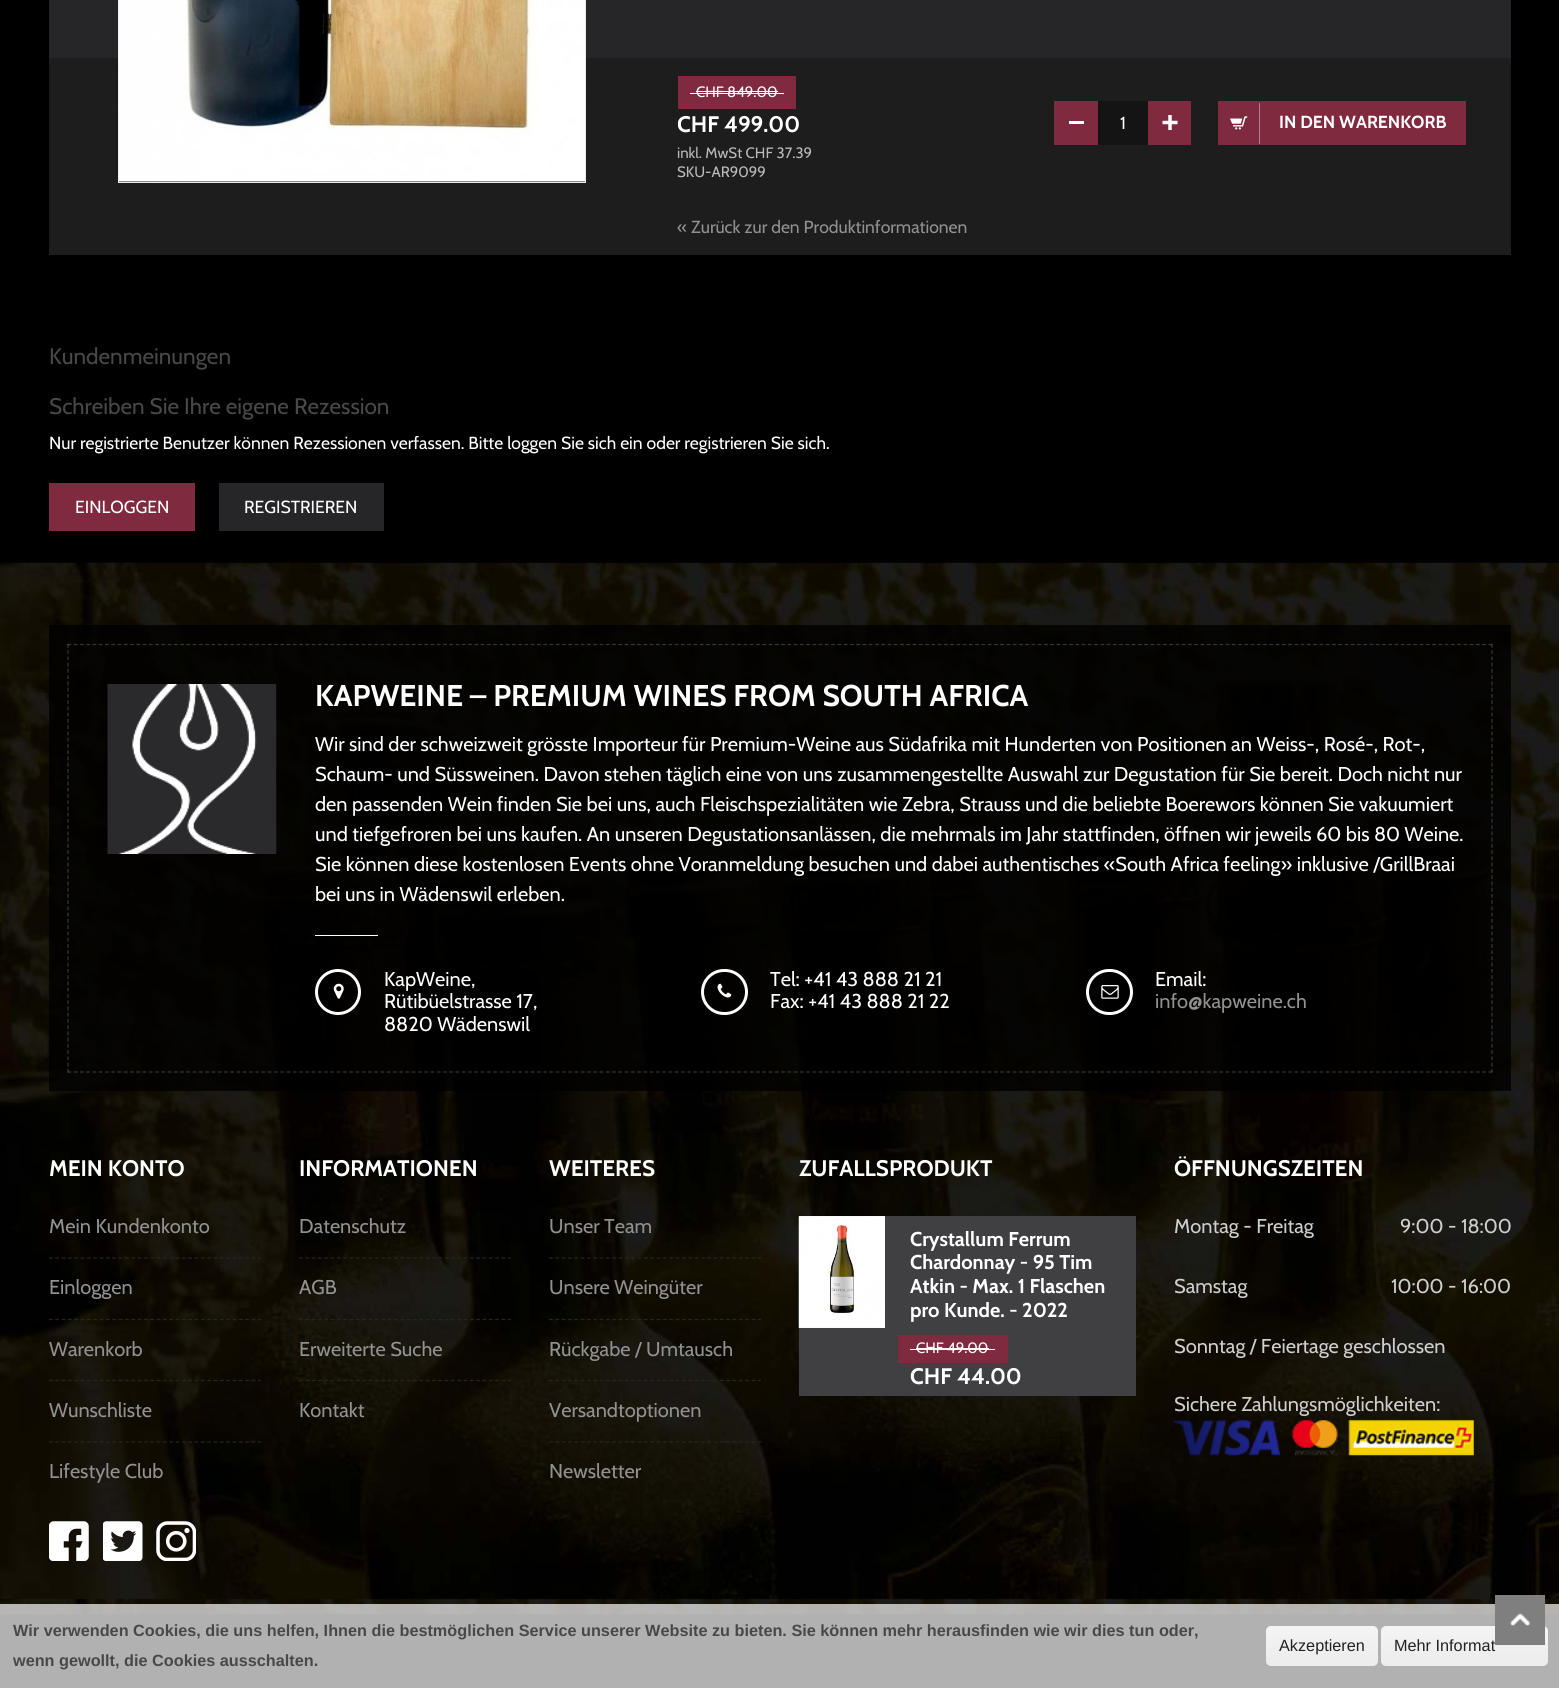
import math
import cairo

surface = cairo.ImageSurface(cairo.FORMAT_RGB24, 1559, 1688)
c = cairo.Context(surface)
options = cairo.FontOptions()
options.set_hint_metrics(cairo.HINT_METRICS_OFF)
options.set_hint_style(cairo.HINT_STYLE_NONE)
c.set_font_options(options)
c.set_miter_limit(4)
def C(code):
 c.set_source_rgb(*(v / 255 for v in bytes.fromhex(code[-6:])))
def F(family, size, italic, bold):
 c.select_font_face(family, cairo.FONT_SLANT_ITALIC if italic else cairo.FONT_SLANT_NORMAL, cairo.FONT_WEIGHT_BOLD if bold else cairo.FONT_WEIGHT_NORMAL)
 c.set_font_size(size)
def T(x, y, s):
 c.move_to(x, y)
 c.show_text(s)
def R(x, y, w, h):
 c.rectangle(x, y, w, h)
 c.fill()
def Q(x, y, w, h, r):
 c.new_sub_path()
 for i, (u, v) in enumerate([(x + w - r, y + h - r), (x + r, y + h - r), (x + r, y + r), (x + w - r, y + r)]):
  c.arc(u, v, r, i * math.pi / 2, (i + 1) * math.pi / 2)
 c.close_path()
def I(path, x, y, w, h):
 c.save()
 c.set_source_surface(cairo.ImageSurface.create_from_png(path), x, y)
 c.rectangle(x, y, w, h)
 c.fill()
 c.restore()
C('000000')
c.paint()
C('262628')
R(49,0,1462,58)
C('1d1d1d')
R(49,58,1462,197)
c.rectangle(118.5,-.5,467,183)
C('ebebeb')
c.set_line_width(1)
c.stroke()
I('1.png',118,0,467,182)
C('802a3f')
R(678,76,118,33)
F('Cabin',15,0,0)
C('ffffff')
T(696,97,'CHF 849.00')
R(696,91,82,1)
R(690,93,94,1)
c.save()
c.rectangle(678,108,122,32)
c.clip()
F('Cabin',22.5,0,1)
T(677,132,'CHF 499.00')
c.restore()
C('802a3f')
R(1054,101,44,44)
C('ffffff')
R(1069,121,15,3)
C('141415')
R(1098,101,50,44)
F('Cabin',17.5,0,0)
C('ffffff')
T(1120,129,'1')
C('802a3f')
R(1148,101,43,44)
I('2.png',1162,115,16,15)
R(1218,101,248,44)
C('b37f8c')
R(1259,103,1,41)
I('3.png',1230,116,18,14)
F('Cabin',17.5,0,1)
C('ffffff')
T(1279,128,'IN DEN WARENKORB')
F('Cabin',15,0,0)
C('bbbbbb')
T(677,158,'inkl. MwSt CHF 37.39')
T(677,177,'SKU-AR9099')
F('Cabin',17.5,0,0)
C('919191')
T(677,233,'« Zurück zur den Produktinformationen')
F('Cabin',22.5,0,0)
C('484848')
T(49,364,'Kundenmeinungen')
T(49,414,'Schreiben Sie Ihre eigene Rezession')
F('Cabin',17.5,0,0)
C('ffffff')
T(49,449,'Nur registrierte Benutzer können Rezessionen verfassen. Bitte loggen Sie sich ein oder registrieren Sie sich.')
C('802a3f')
R(49,483,146,48)
C('ffffff')
T(75,513,'EINLOGGEN')
C('262628')
R(219,483,165,48)
C('ffffff')
T(244,513,'REGISTRIEREN')
I('4.png',0,562,1559,1052)
c.set_source_rgba(0,0,0,0.8)
R(49,625,1462,466)
c.new_path()
c.move_to(67.5,644.5)
c.line_to(1492.5,644.5)
c.set_source_rgba(1,1,1,0.2)
c.set_line_width(1.2)
c.set_dash([3.75,2.51])
c.stroke()
c.new_path()
c.move_to(1492,644)
c.line_to(1492,1072.5)
c.set_dash([3.75,2.5])
c.stroke()
c.new_path()
c.move_to(67.5,1072)
c.line_to(1492.5,1072)
c.set_dash([3.75,2.51])
c.stroke()
c.new_path()
c.move_to(68,644)
c.line_to(68,1072.5)
c.set_dash([3.75,2.5])
c.stroke()
I('5.png',107,684,170,170)
F('Cabin',30,0,1)
C('ffffff')
T(315,706,'KAPWEINE – PREMIUM WINES FROM SOUTH AFRICA')
F('Cabin',20,0,0)
T(315,751,'Wir sind der schweizweit grösste Importeur für Premium-Weine aus Südafrika mit Hunderten von Positionen an Weiss-, Rosé-, Rot-,')
T(315,781,'Schaum- und Süssweinen. Davon stehen täglich eine von uns zusammengestellte Auswahl zur Degustation für Sie bereit. Doch nicht nur')
T(315,811,'den passenden Wein finden Sie bei uns, auch Fleischspezialitäten wie Zebra, Strauss und die beliebte Boerewors können Sie vakuumiert')
T(315,841,'und tiefgefroren bei uns kaufen. An unseren Degustationsanlässen, die mehrmals im Jahr stattfinden, öffnen wir jeweils 60 bis 80 Weine.')
T(315,871,'Sie können diese kostenlosen Events ohne Voranmeldung besuchen und dabei authentisches «South Africa feeling» inklusive /GrillBraai')
T(315,901,'bei uns in Wädenswil erleben.')
R(315,935,63,1)
c.new_path()
c.arc(338,992,21.5,0,2 * math.pi)
c.set_line_width(3)
c.set_dash([])
c.stroke()
I('6.png',333,983,11,16)
T(384,986,'KapWeine,')
T(384,1008,'Rütibüelstrasse 17,')
T(384,1031,'8820 Wädenswil')
Q(702.5,970.5,44,43,21.5)
c.stroke()
I('7.png',717,983,15,15)
T(770,986,'Tel: +41 43 888 21 21')
T(770,1008,'Fax: +41 43 888 21 22')
Q(1087.5,970.5,44,43,21.5)
c.stroke()
I('8.png',1101,985,18,14)
T(1155,986,'Email:')
C('919191')
T(1155,1008,'info@kapweine.ch')
F('Cabin',22.5,0,1)
C('ffffff')
T(49,1176,'MEIN KONTO')
c.new_path()
c.move_to(49,1258)
c.line_to(261,1258)
C('252523')
c.set_line_width(1.2)
c.set_dash([3.75,2.58])
c.stroke()
F('Cabin',20,0,0)
C('919191')
T(49,1233,'Mein Kundenkonto')
c.new_path()
c.move_to(49,1319.5)
c.line_to(261,1319.5)
C('252523')
c.stroke()
C('919191')
T(49,1294,'Einloggen')
c.new_path()
c.move_to(49,1380.5)
c.line_to(261,1380.5)
C('252523')
c.stroke()
C('919191')
T(49,1356,'Warenkorb')
c.new_path()
c.move_to(49,1442)
c.line_to(261,1442)
C('252523')
c.stroke()
C('919191')
T(49,1417,'Wunschliste')
T(49,1478,'Lifestyle Club')
I('9.png',49,1521,40,40)
I('10.png',103,1521,40,40)
I('11.png',156,1521,40,40)
F('Cabin',22.5,0,1)
C('ffffff')
T(299,1176,'INFORMATIONEN')
c.new_path()
c.move_to(299,1258)
c.line_to(511,1258)
C('252523')
c.stroke()
F('Cabin',20,0,0)
C('919191')
T(299,1233,'Datenschutz')
c.new_path()
c.move_to(299,1319.5)
c.line_to(511,1319.5)
C('252523')
c.stroke()
C('919191')
T(299,1294,'AGB')
c.new_path()
c.move_to(299,1380.5)
c.line_to(511,1380.5)
C('252523')
c.stroke()
C('919191')
T(299,1356,'Erweiterte Suche')
T(299,1417,'Kontakt')
F('Cabin',22.5,0,1)
C('ffffff')
T(549,1176,'WEITERES')
c.new_path()
c.move_to(549,1258)
c.line_to(761,1258)
C('252523')
c.stroke()
F('Cabin',20,0,0)
C('919191')
T(549,1233,'Unser Team')
c.new_path()
c.move_to(549,1319.5)
c.line_to(761,1319.5)
C('252523')
c.stroke()
C('919191')
T(549,1294,'Unsere Weingüter')
c.new_path()
c.move_to(549,1380.5)
c.line_to(761,1380.5)
C('252523')
c.stroke()
C('919191')
T(549,1356,'Rückgabe / Umtausch')
c.new_path()
c.move_to(549,1442)
c.line_to(761,1442)
C('252523')
c.stroke()
C('919191')
T(549,1417,'Versandtoptionen')
T(549,1478,'Newsletter')
F('Cabin',22.5,0,1)
C('ffffff')
T(799,1176,'ZUFALLSPRODUKT')
C('404042')
R(799,1216,337,180)
C('f2f2f2')
R(799,1216,86,112)
I('12.png',798,1216,87,112)
F('Cabin',20,0,1)
C('ffffff')
T(910,1246,'Crystallum Ferrum')
T(910,1269,'Chardonnay - 95 Tim')
T(910,1293,'Atkin - Max. 1 Flaschen')
T(910,1317,'pro Kunde. - 2022')
C('802a3f')
R(898,1335,110,28)
F('Cabin',15,0,0)
C('ffffff')
T(916,1353,'CHF 49.00')
R(916,1348,73,1)
R(910,1349,85,1)
F('Cabin',22.5,0,1)
T(910,1384,'CHF 44.00')
T(1174,1176,'ÖFFNUNGSZEITEN')
F('Cabin',20,0,0)
C('cecece')
T(1174,1233,'Montag - Freitag')
T(1400,1233,'9:00 - 18:00')
T(1174,1293,'Samstag')
T(1391,1293,'10:00 - 16:00')
T(1174,1353,'Sonntag / Feiertage geschlossen')
T(1174,1411,'Sichere Zahlungsmöglichkeiten:')
I('13.png',1173,1420,301,36)
c.set_source_rgba(0.922,0.922,0.922,0.75)
R(0,1604,1559,84)
gradient = cairo.LinearGradient(1464,1626,1464,1666)
gradient.add_color_stop_rgba(0,0.957,0.957,0.957,1)
gradient.add_color_stop_rgba(1,0.925,0.925,0.925,1)
c.set_source(gradient)
Q(1381,1626,167,40,5)
c.fill()
F('Liberation Sans',16.25,0,0)
C('222222')
T(1394,1651,'Mehr Informat')
C('7f7f7f')
R(1495,1595,50,50)
I('14.png',1510,1613,21,14)
F('Liberation Sans',16.25,0,1)
C('484848')
T(13,1636,'Wir verwenden Cookies, die uns helfen, Ihnen die bestmöglichen Service unserer Website zu bieten. Sie können mehr herausfinden wie wir dies tun oder,')
T(13,1666,'wenn gewollt, die Cookies ausschalten.')
gradient = cairo.LinearGradient(1322,1626,1322,1666)
gradient.add_color_stop_rgba(0,0.957,0.957,0.957,1)
gradient.add_color_stop_rgba(1,0.925,0.925,0.925,1)
c.set_source(gradient)
Q(1266,1626,112,40,5)
c.fill()
F('Liberation Sans',16.25,0,0)
C('222222')
T(1279,1651,'Akzeptieren')
surface.write_to_png('o.png')
